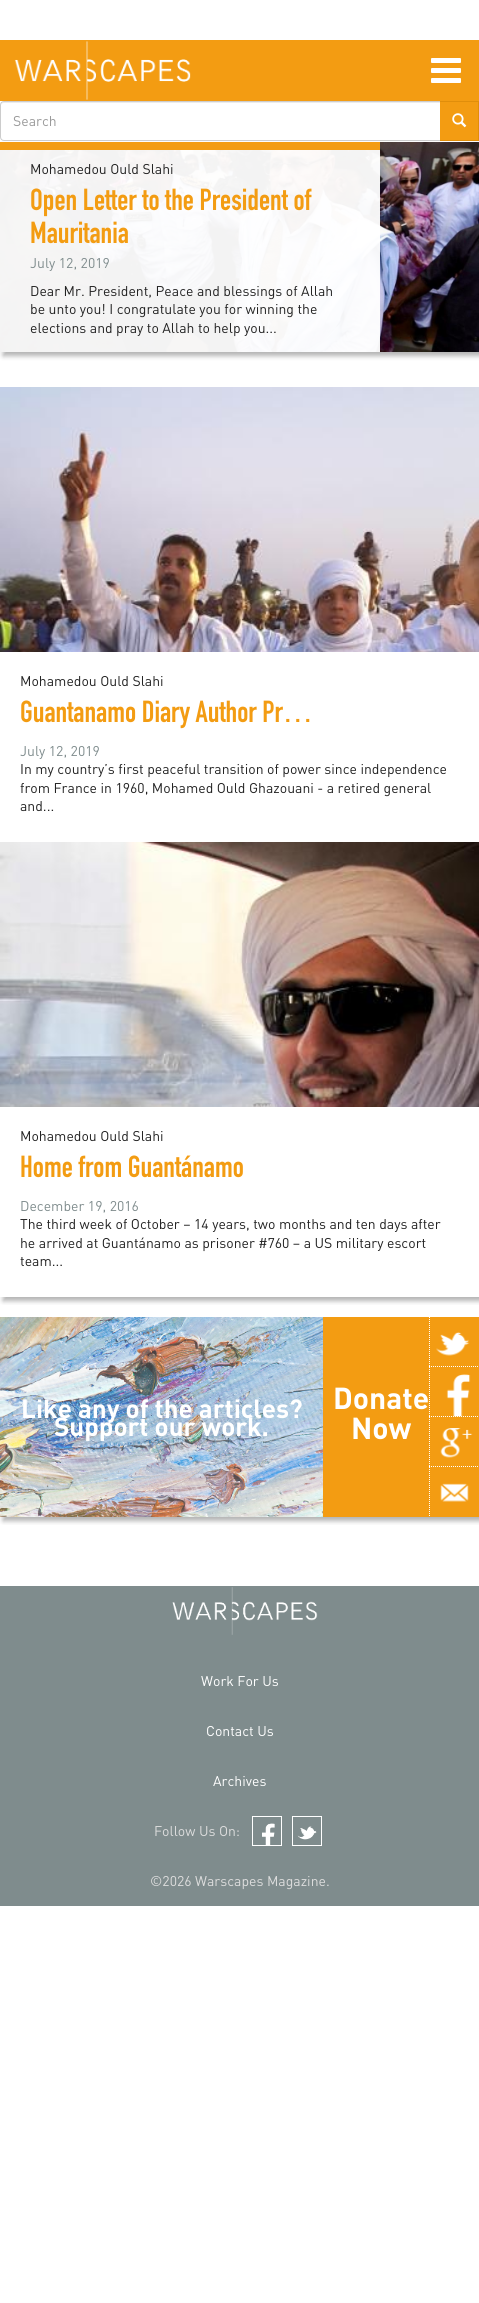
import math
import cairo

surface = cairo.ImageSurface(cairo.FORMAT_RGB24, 479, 2303)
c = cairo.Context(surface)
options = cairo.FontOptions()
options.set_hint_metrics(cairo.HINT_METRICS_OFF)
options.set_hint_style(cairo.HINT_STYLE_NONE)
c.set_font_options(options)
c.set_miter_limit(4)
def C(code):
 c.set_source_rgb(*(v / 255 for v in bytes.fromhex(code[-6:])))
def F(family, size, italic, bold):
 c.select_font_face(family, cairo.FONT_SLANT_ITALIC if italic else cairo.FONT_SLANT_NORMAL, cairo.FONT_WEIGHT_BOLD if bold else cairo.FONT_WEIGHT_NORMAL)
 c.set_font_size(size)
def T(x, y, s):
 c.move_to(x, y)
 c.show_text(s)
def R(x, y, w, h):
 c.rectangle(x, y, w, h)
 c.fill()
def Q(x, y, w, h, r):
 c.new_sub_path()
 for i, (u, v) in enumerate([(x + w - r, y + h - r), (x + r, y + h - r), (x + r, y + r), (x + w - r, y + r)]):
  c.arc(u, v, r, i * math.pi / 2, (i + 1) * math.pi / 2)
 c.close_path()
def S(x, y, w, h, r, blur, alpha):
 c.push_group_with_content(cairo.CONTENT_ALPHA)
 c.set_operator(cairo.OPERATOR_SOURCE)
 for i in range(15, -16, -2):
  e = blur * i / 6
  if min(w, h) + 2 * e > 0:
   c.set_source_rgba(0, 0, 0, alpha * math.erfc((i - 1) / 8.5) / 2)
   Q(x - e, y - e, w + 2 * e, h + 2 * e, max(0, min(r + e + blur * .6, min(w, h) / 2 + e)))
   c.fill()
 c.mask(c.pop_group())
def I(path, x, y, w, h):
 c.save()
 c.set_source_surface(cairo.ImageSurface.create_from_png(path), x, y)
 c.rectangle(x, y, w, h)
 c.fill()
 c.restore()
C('ffffff')
c.paint()
C('f39c12')
R(0,40,479,61)
I('1.png',14,41,177,59)
C('ffffff')
Q(431,58,30,5,1)
c.fill()
Q(431,68,30,5,1)
c.fill()
Q(431,78,30,5,1)
c.fill()
C('ececec')
c.new_path()
c.move_to(4,103)
c.line_to(440,103)
c.line_to(440,102)
c.line_to(4,102)
c.curve_to(2,102,1,104,1,106)
c.curve_to(1,104,2,103,4,103)
c.close_path()
c.fill()
C('000000')
S(3,146,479,210,0,2.5,.3)
c.new_path()
c.move_to(4,101.5)
c.line_to(440.5,101.5)
c.line_to(440.5,140.5)
c.line_to(4,140.5)
c.curve_to(2,140.5,.5,139,.5,137)
c.line_to(.5,105)
c.curve_to(.5,103,2,101.5,4,101.5)
c.close_path()
C('cccccc')
c.set_line_width(1)
c.stroke()
F('DIN',14,0,0)
C('999999')
T(13,126,'Search')
C('f39c12')
R(440,102,38,38)
C('e08e0b')
R(440,101,39,1)
R(478,101,1,40)
R(440,140,39,1)
I('2.png',452,113,15,15)
I('3.png',0,142,479,210)
c.set_source_rgba(1,1,1,0.95)
R(0,150,380,202)
C('f39c12')
R(0,142,380,8)
C('222222')
T(30,174,'Mohamedou Ould Slahi')
F('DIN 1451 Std',30,0,0)
C('f39c12')
T(30,210,'Open Letter to the President of')
T(30,243,'Mauritania')
F('DIN',14,0,0)
C('7f8c8d')
T(30,268,'July 12, 2019')
C('222222')
T(30,296,'Dear Mr. President, Peace and blessings of Allah')
T(30,314,'be unto you! I congratulate you for winning the')
T(30,333,'elections and pray to Allah to help you...')
I('4.png',0,387,479,265)
T(20,686,'Mohamedou Ould Slahi')
F('DIN 1451 Std',30,0,0)
C('f39c12')
T(20,722,'Guantanamo Diary Author Pr…')
F('DIN',14,0,0)
C('7f8c8d')
T(20,756,'July 12, 2019')
C('222222')
T(20,774,'In my country’s first peaceful transition of power since independence')
T(20,793,'from France in 1960, Mohamed Ould Ghazouani - a retired general')
T(20,811,'and...')
c.save()
c.rectangle(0,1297,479,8)
c.clip()
C('000000')
S(3,846,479,455,0,2.5,.3)
c.restore()
I('5.png',0,842,479,265)
T(20,1141,'Mohamedou Ould Slahi')
F('DIN 1451 Std',30,0,0)
C('f39c12')
T(20,1177,'Home from Guantánamo')
F('DIN',14,0,0)
C('7f8c8d')
T(20,1211,'December 19, 2016')
C('222222')
T(20,1229,'The third week of October – 14 years, two months and ten days after')
T(20,1248,'he arrived at Guantánamo as prisoner #760 – a US military escort')
T(20,1266,'team...')
c.save()
c.rectangle(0,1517,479,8)
c.clip()
C('000000')
S(3,1321,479,200,0,2.5,.3)
c.restore()
I('6.png',0,1317,323,200)
F('DIN',26,0,1)
C('ffffff')
T(21,1418,'Like any of the articles?')
T(54,1436,'Support our work.')
C('f39c12')
R(323,1317,156,200)
F('DIN',30,0,1)
C('ffffff')
T(333,1409,'Donate')
T(351,1439,'Now')
I('7.png',436,1332,34,24)
c.new_path()
c.move_to(429,1366.5)
c.line_to(479,1366.5)
c.move_to(429.5,1317)
c.line_to(429.5,1367)
c.set_dash([1,1])
c.stroke()
I('8.png',446,1374,25,43)
c.new_path()
c.move_to(429,1416.5)
c.line_to(479,1416.5)
c.move_to(429.5,1367)
c.line_to(429.5,1417)
c.stroke()
I('9.png',440,1428,33,30)
c.new_path()
c.move_to(429,1466.5)
c.line_to(479,1466.5)
c.move_to(429.5,1417)
c.line_to(429.5,1467)
c.stroke()
I('10.png',440,1483,29,19)
c.new_path()
c.move_to(429.5,1467)
c.line_to(429.5,1517)
c.stroke()
C('7f8c8d')
R(0,1586,479,320)
I('11.png',172,1587,146,48)
F('DIN',14,0,0)
C('ffffff')
T(201,1686,'Work For Us')
T(206,1736,'Contact Us')
T(213,1786,'Archives')
C('dddddd')
T(154,1836,'Follow Us On:')
I('12.png',262,1823,13,22)
c.rectangle(252.5,1816.5,29,29)
C('ffffff')
c.set_dash([])
c.stroke()
I('13.png',297,1826,20,14)
c.rectangle(292.5,1816.5,29,29)
c.stroke()
C('dddddd')
T(150,1886,'©2026 Warscapes Magazine.')
surface.write_to_png('o.png')
